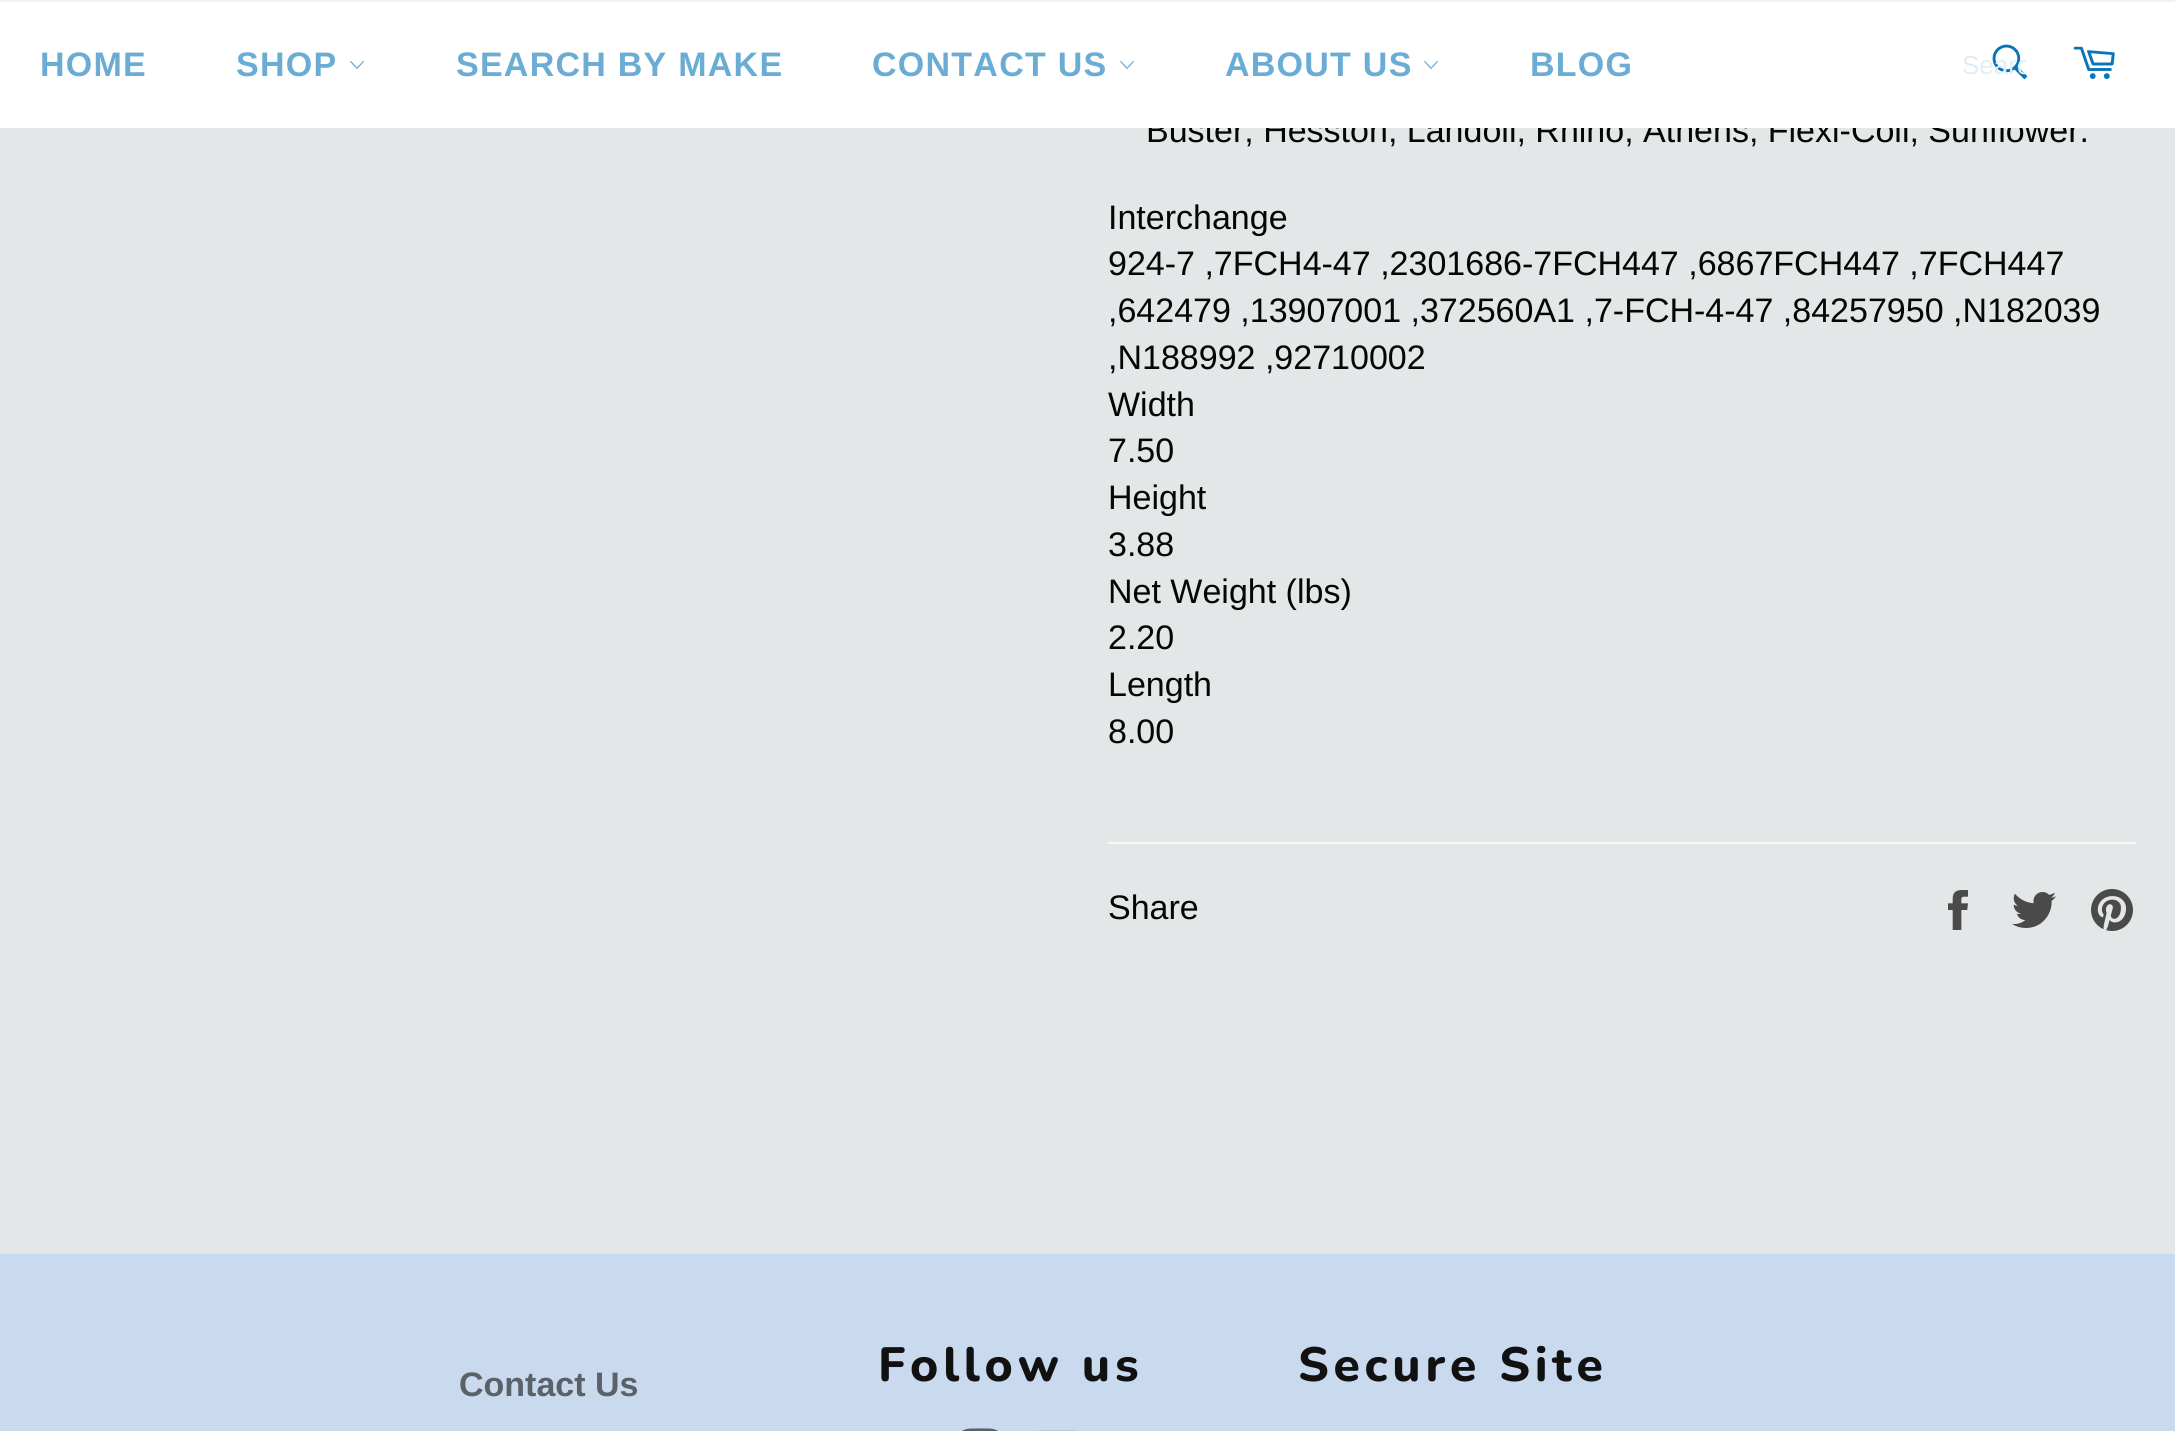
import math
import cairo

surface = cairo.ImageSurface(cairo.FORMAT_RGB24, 2175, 1431)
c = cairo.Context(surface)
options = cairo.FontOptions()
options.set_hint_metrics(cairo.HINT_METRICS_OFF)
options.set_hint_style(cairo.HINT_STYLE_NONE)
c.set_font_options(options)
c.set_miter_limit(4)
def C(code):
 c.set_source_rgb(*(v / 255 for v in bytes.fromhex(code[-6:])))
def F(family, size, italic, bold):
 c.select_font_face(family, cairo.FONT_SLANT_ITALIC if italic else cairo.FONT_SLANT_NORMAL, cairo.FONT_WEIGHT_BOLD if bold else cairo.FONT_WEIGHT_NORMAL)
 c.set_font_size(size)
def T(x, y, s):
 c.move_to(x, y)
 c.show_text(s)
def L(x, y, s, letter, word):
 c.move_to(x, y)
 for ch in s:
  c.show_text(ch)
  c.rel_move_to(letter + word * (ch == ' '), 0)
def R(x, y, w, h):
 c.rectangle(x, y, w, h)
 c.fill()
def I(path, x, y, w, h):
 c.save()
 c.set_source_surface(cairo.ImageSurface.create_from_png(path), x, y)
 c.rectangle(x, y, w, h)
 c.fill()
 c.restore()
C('e4e7e8')
c.paint()
F('Arimo',34,0,0)
C('070606')
T(1146,142,'Buster; Hesston; Landoll; Rhino; Athens; Flexi-Coil; Sunflower.')
C('ffffff')
R(0,2,2175,126)
C('f2f2f2')
R(0,0,2175,2)
F('Arimo',34,0,1)
C('6bacd4')
L(40,76,'HOME',1.25,0)
L(236,76,'SHOP',1.25,0)
I('1.png',350,60,14,9)
L(456,76,'SEARCH BY MAKE',1.25,0)
L(872,76,'CONTACT US',1.25,0)
I('1.png',1120,60,14,9)
L(1225,76,'ABOUT US',1.25,0)
I('1.png',1424,60,14,9)
L(1530,76,'BLOG',1.25,0)
I('2.png',1992,44,36,36)
c.save()
c.rectangle(1962,50,64,30)
c.clip()
F('Arimo',26,0,0)
C('e1eef6')
T(1962,74,'Searc')
c.restore()
I('3.png',2073,46,42,33)
F('Arimo',34,0,0)
C('070606')
T(1108,229,'Interchange')
T(1108,275,'924-7 ,7FCH4-47 ,2301686-7FCH447 ,6867FCH447 ,7FCH447')
T(1108,322,',642479 ,13907001 ,372560A1 ,7-FCH-4-47 ,84257950 ,N182039')
T(1108,369,',N188992 ,92710002')
T(1108,416,'Width')
T(1108,462,'7.50')
T(1108,509,'Height')
T(1108,556,'3.88')
T(1108,603,'Net Weight (lbs)')
T(1108,649,'2.20')
T(1108,696,'Length')
T(1108,743,'8.00')
C('f7f7f7')
R(1108,842,1028,2)
C('070606')
T(1108,919,'Share')
I('4.png',1948,890,20,40)
I('5.png',2012,892,44,36)
I('6.png',2091,889,42,42)
C('c9daee')
R(0,1254,2175,177)
F('Nunito ExtraBold',48,0,0)
C('121111')
L(878,1381,'Follow us',4.75,0)
I('7.png',962,1428,36,3)
I('8.png',1039,1430,37,1)
L(1298,1381,'Secure Site',4.75,0)
F('Arimo',34,0,1)
C('5b6169')
T(459,1396,'Contact Us')
surface.write_to_png('o.png')
